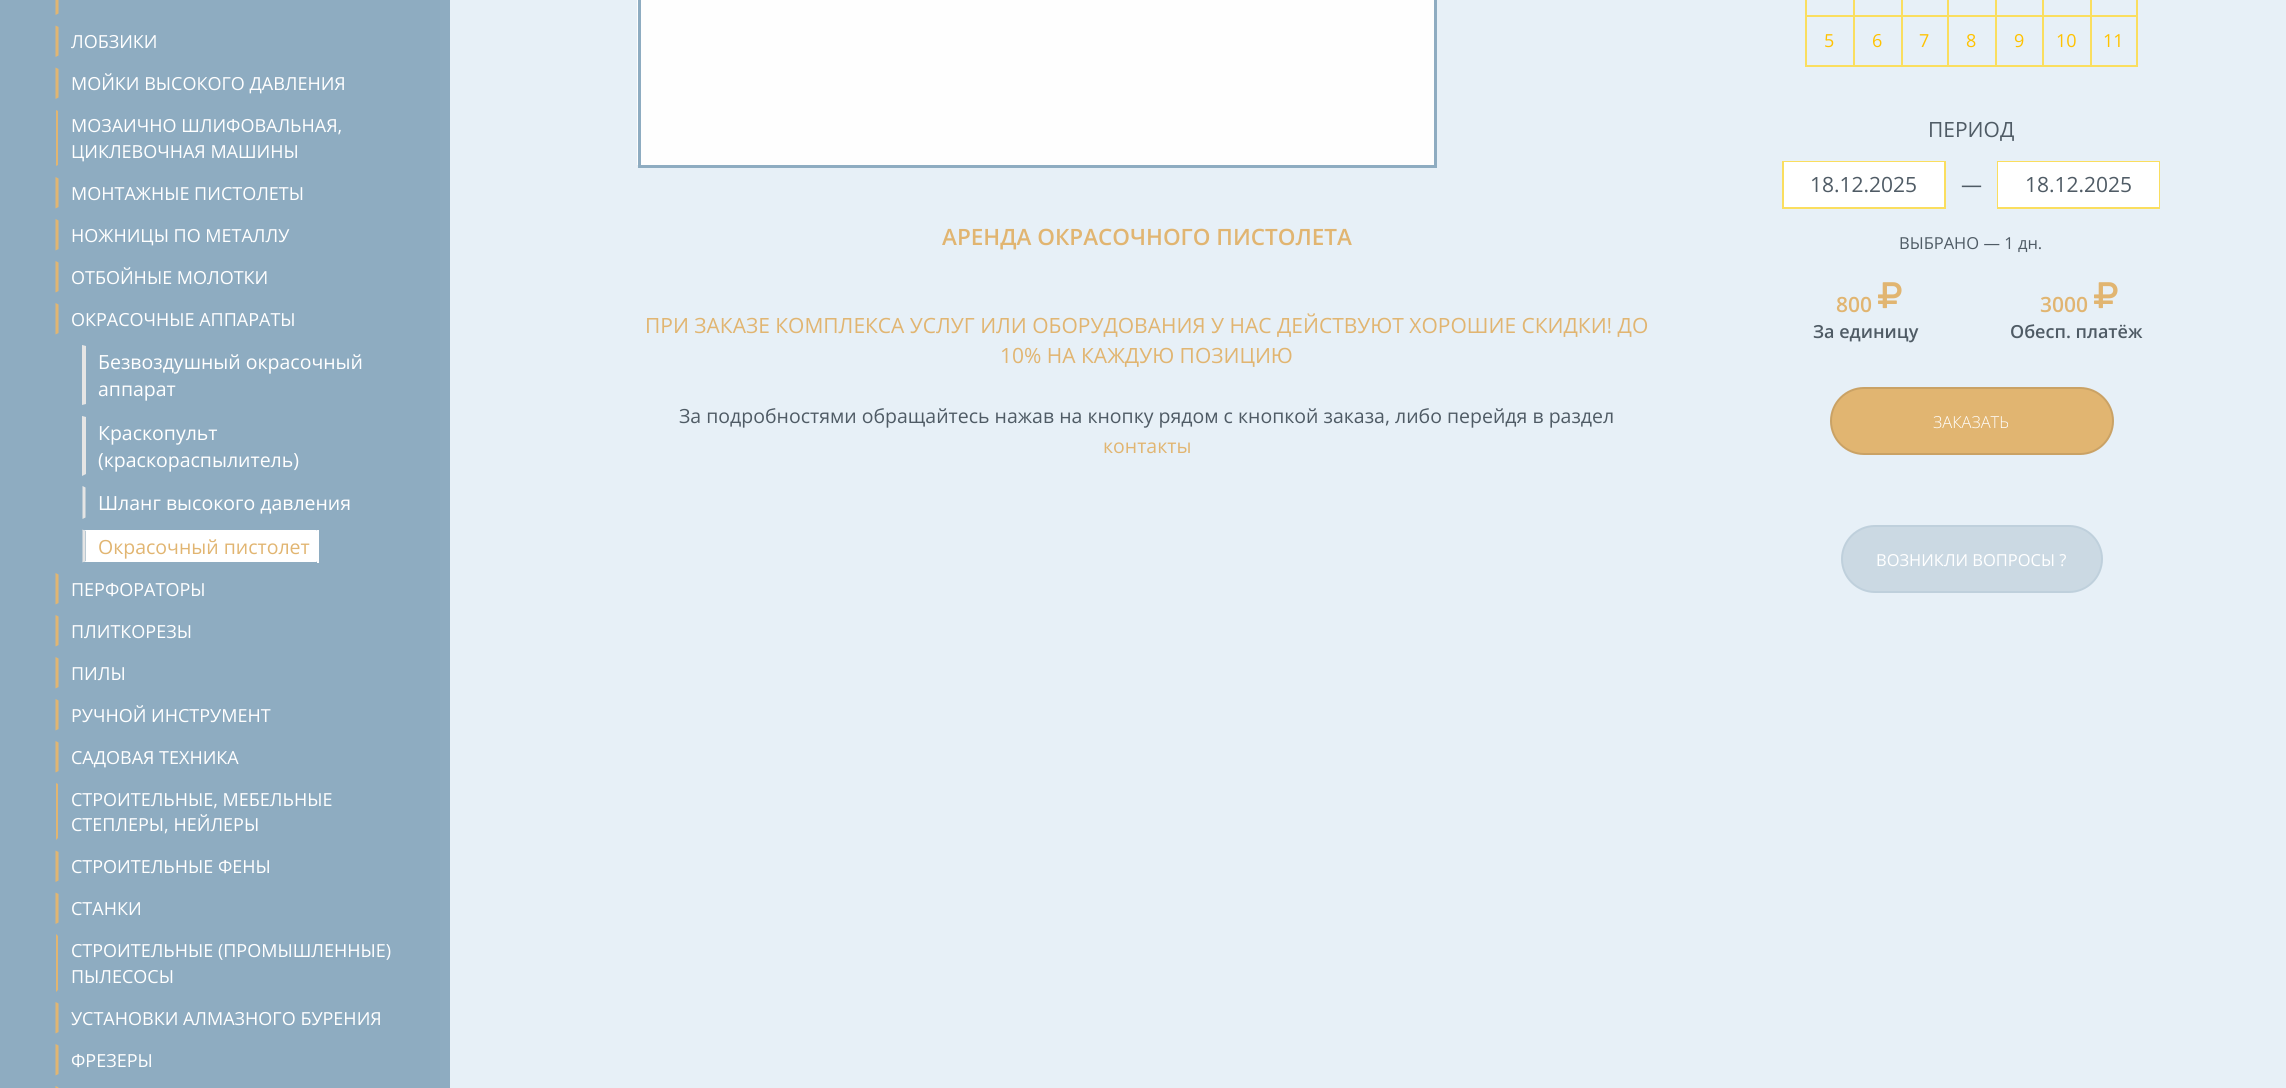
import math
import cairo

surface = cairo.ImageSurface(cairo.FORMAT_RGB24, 2286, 1088)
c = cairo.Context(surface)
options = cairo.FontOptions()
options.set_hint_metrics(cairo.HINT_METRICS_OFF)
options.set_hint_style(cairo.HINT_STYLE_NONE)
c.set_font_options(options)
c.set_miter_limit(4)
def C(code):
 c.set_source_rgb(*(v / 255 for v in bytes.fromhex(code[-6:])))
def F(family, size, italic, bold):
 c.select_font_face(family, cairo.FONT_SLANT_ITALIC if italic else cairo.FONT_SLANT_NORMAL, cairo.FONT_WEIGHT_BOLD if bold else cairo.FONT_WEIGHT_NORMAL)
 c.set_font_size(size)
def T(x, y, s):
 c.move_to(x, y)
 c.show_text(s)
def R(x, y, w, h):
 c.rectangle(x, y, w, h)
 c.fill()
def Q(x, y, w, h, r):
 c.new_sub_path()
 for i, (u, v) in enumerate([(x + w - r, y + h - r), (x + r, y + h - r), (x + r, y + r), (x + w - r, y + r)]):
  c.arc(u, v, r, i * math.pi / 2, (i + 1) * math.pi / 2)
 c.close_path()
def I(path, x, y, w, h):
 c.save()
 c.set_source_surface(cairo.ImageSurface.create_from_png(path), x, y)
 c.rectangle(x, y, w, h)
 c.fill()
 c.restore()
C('e7f0f7')
c.paint()
C('8eacc1')
R(0,0,450,1088)
C('fefefe')
R(637,0,797,165)
c.rectangle(639.5,-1.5,796,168)
C('8eacc1')
c.set_line_width(3)
c.stroke()
C('fade5f')
R(1805,15,285,2)
R(1805,0,2,17)
R(2136,0,2,66)
R(1805,65,333,2)
R(1805,17,2,49)
F('Open Sans',18,0,0)
C('ffc200')
T(1824,47,'5')
C('fade5f')
R(1853,0,2,17)
R(1853,17,2,49)
C('ffc200')
T(1872,47,'6')
C('fade5f')
R(1901,0,2,17)
R(1901,17,2,49)
C('ffc200')
T(1919,47,'7')
C('fade5f')
R(1947,0,2,17)
R(1947,17,2,49)
C('ffc200')
T(1966,47,'8')
C('fade5f')
R(1995,0,2,17)
R(1995,17,2,49)
C('ffc200')
T(2014,47,'9')
C('fade5f')
R(2042,0,2,17)
R(2042,17,2,49)
C('ffc200')
T(2056,47,'10')
C('fade5f')
R(2090,15,48,2)
R(2090,0,2,17)
R(2090,17,2,49)
C('ffc200')
T(2103,47,'11')
F('Open Sans',21,0,0)
C('4f5b65')
T(1928,137,'ПЕРИОД')
c.rectangle(1783,162,162,46)
C('fade5f')
c.set_line_width(2)
c.stroke()
C('ffffff')
R(1784,162,160,45)
C('4f5b65')
T(1810,192,'18.12.2025')
T(1961,192,'—')
c.rectangle(1998,162,161,46)
C('fade5f')
c.stroke()
C('ffffff')
R(1998,162,161,45)
C('4f5b65')
T(2025,192,'18.12.2025')
F('Open Sans',16.5,0,0)
T(1899,249,'ВЫБРАНО — 1 дн.')
F('Open Sans SemiBold',21,0,0)
C('e1b571')
T(1836,312,'800')
I('1.png',1878,282,24,27)
F('Open Sans SemiBold',18,0,0)
C('4f5b65')
T(1813,338,'За единицу')
F('Open Sans SemiBold',21,0,0)
C('e1b571')
T(2040,312,'3000')
I('1.png',2094,282,24,27)
F('Open Sans SemiBold',18,0,0)
C('4f5b65')
T(2010,338,'Обесп. платёж')
C('e1b571')
Q(1831,388,282,66,33)
c.fill_preserve()
C('caa265')
c.stroke()
F('Open Sans Light',16.5,0,0)
C('ffffff')
T(1933,428,'ЗАКАЗАТЬ')
C('cbd9e3')
Q(1842,526,260,66,33)
c.fill_preserve()
C('bfd0dc')
c.stroke()
F('Open Sans',16.5,0,0)
C('ffffff')
T(1876,566,'ВОЗНИКЛИ ВОПРОСЫ ?')
F('Open Sans SemiBold',22.5,0,0)
C('e1b571')
T(942,245,'АРЕНДА ОКРАСОЧНОГО ПИСТОЛЕТА')
F('Open Sans',21,0,0)
T(645,333,'ПРИ ЗАКАЗЕ КОМПЛЕКСА УСЛУГ ИЛИ ОБОРУДОВАНИЯ У НАС ДЕЙСТВУЮТ ХОРОШИЕ СКИДКИ! ДО')
T(1000,363,'10% НА КАЖДУЮ ПОЗИЦИЮ')
F('Open Sans',19.5,0,0)
C('4f5b65')
T(679,423,'За подробностями обращайтесь нажав на кнопку рядом с кнопкой заказа, либо перейдя в раздел')
C('e1b571')
T(1103,453,'контакты')
c.new_path()
c.move_to(55.5,15)
c.line_to(55.5,-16.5)
c.line_to(58.5,-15)
c.line_to(58.5,13.5)
c.close_path()
c.move_to(55.5,57)
c.line_to(55.5,25.5)
c.line_to(58.5,27)
c.line_to(58.5,55.5)
c.close_path()
c.fill()
F('Open Sans',18,0,0)
C('ffffff')
T(71,48,'ЛОБЗИКИ')
C('e1b571')
c.new_path()
c.move_to(55.5,99)
c.line_to(55.5,67.5)
c.line_to(58.5,69)
c.line_to(58.5,97.5)
c.close_path()
c.fill()
C('ffffff')
T(71,90,'МОЙКИ ВЫСОКОГО ДАВЛЕНИЯ')
C('e1b571')
c.new_path()
c.move_to(56,166)
c.line_to(56,110)
c.line_to(58,111)
c.line_to(58,165)
c.close_path()
c.fill()
C('ffffff')
T(71,132,'МОЗАИЧНО ШЛИФОВАЛЬНАЯ,')
T(71,158,'ЦИКЛЕВОЧНАЯ МАШИНЫ')
C('e1b571')
c.new_path()
c.move_to(55.5,208.5)
c.line_to(55.5,177)
c.line_to(58.5,178.5)
c.line_to(58.5,207)
c.close_path()
c.fill()
C('ffffff')
T(71,200,'МОНТАЖНЫЕ ПИСТОЛЕТЫ')
C('e1b571')
c.new_path()
c.move_to(55.5,250.5)
c.line_to(55.5,219)
c.line_to(58.5,220.5)
c.line_to(58.5,249)
c.close_path()
c.fill()
C('ffffff')
T(71,242,'НОЖНИЦЫ ПО МЕТАЛЛУ')
C('e1b571')
c.new_path()
c.move_to(55.5,292.5)
c.line_to(55.5,261)
c.line_to(58.5,262.5)
c.line_to(58.5,291)
c.close_path()
c.fill()
C('ffffff')
T(71,284,'ОТБОЙНЫЕ МОЛОТКИ')
C('e1b571')
c.new_path()
c.move_to(55.5,334.5)
c.line_to(55.5,303)
c.line_to(58.5,304.5)
c.line_to(58.5,333)
c.close_path()
c.fill()
C('ffffff')
T(71,326,'ОКРАСОЧНЫЕ АППАРАТЫ')
C('e5e5e5')
c.new_path()
c.move_to(82,405)
c.line_to(82,345)
c.line_to(86,346)
c.line_to(86,404)
c.close_path()
c.fill()
F('Open Sans',19.5,0,0)
C('ffffff')
T(98,369,'Безвоздушный окрасочный')
T(98,396,'аппарат')
C('e5e5e5')
c.new_path()
c.move_to(82,476)
c.line_to(82,416)
c.line_to(86,417)
c.line_to(86,474)
c.close_path()
c.fill()
C('ffffff')
T(98,440,'Краскопульт')
T(98,467,'(краскораспылитель)')
C('e5e5e5')
c.new_path()
c.move_to(82.5,519)
c.line_to(82.5,486)
c.line_to(85.5,487.5)
c.line_to(85.5,517.5)
c.close_path()
c.fill()
C('ffffff')
T(98,510,'Шланг высокого давления')
R(86,531,231,30)
c.new_path()
c.move_to(82,530)
c.line_to(318,530)
c.line_to(316,531)
c.line_to(86,531)
c.close_path()
c.fill()
R(317,530,2,33)
c.new_path()
c.move_to(318,562)
c.line_to(82,562)
c.line_to(86,561)
c.line_to(316,561)
c.close_path()
c.fill()
C('e5e5e5')
c.new_path()
c.move_to(82.5,562.5)
c.line_to(82.5,529.5)
c.line_to(85.5,531)
c.line_to(85.5,561)
c.close_path()
c.fill()
C('e1b571')
T(98,554,'Окрасочный пистолет')
c.new_path()
c.move_to(55.5,604.5)
c.line_to(55.5,573)
c.line_to(58.5,574.5)
c.line_to(58.5,603)
c.close_path()
c.fill()
F('Open Sans',18,0,0)
C('ffffff')
T(71,596,'ПЕРФОРАТОРЫ')
C('e1b571')
c.new_path()
c.move_to(55.5,646.5)
c.line_to(55.5,615)
c.line_to(58.5,616.5)
c.line_to(58.5,645)
c.close_path()
c.fill()
C('ffffff')
T(71,638,'ПЛИТКОРЕЗЫ')
C('e1b571')
c.new_path()
c.move_to(55.5,688.5)
c.line_to(55.5,657)
c.line_to(58.5,658.5)
c.line_to(58.5,687)
c.close_path()
c.fill()
C('ffffff')
T(71,680,'ПИЛЫ')
C('e1b571')
c.new_path()
c.move_to(55.5,730.5)
c.line_to(55.5,699)
c.line_to(58.5,700.5)
c.line_to(58.5,729)
c.close_path()
c.fill()
C('ffffff')
T(71,722,'РУЧНОЙ ИНСТРУМЕНТ')
C('e1b571')
c.new_path()
c.move_to(55.5,772.5)
c.line_to(55.5,741)
c.line_to(58.5,742.5)
c.line_to(58.5,771)
c.close_path()
c.fill()
C('ffffff')
T(71,764,'САДОВАЯ ТЕХНИКА')
C('e1b571')
c.new_path()
c.move_to(56,840)
c.line_to(56,783)
c.line_to(58,784)
c.line_to(58,838)
c.close_path()
c.fill()
C('ffffff')
T(71,806,'СТРОИТЕЛЬНЫЕ, МЕБЕЛЬНЫЕ')
T(71,831,'СТЕПЛЕРЫ, НЕЙЛЕРЫ')
C('e1b571')
c.new_path()
c.move_to(55.5,882)
c.line_to(55.5,850.5)
c.line_to(58.5,852)
c.line_to(58.5,880.5)
c.close_path()
c.fill()
C('ffffff')
T(71,873,'СТРОИТЕЛЬНЫЕ ФЕНЫ')
C('e1b571')
c.new_path()
c.move_to(55.5,924)
c.line_to(55.5,892.5)
c.line_to(58.5,894)
c.line_to(58.5,922.5)
c.close_path()
c.fill()
C('ffffff')
T(71,915,'СТАНКИ')
C('e1b571')
c.new_path()
c.move_to(56,992)
c.line_to(56,934)
c.line_to(58,936)
c.line_to(58,990)
c.close_path()
c.fill()
C('ffffff')
T(71,957,'СТРОИТЕЛЬНЫЕ (ПРОМЫШЛЕННЫЕ)')
T(71,983,'ПЫЛЕСОСЫ')
C('e1b571')
c.new_path()
c.move_to(55.5,1033.5)
c.line_to(55.5,1002)
c.line_to(58.5,1003.5)
c.line_to(58.5,1032)
c.close_path()
c.fill()
C('ffffff')
T(71,1025,'УСТАНОВКИ АЛМАЗНОГО БУРЕНИЯ')
C('e1b571')
c.new_path()
c.move_to(55.5,1075.5)
c.line_to(55.5,1044)
c.line_to(58.5,1045.5)
c.line_to(58.5,1074)
c.close_path()
c.fill()
C('ffffff')
T(71,1067,'ФРЕЗЕРЫ')
C('e1b571')
c.new_path()
c.move_to(55.5,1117.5)
c.line_to(55.5,1086)
c.line_to(58.5,1087.5)
c.line_to(58.5,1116)
c.close_path()
c.fill()
surface.write_to_png('o.png')
